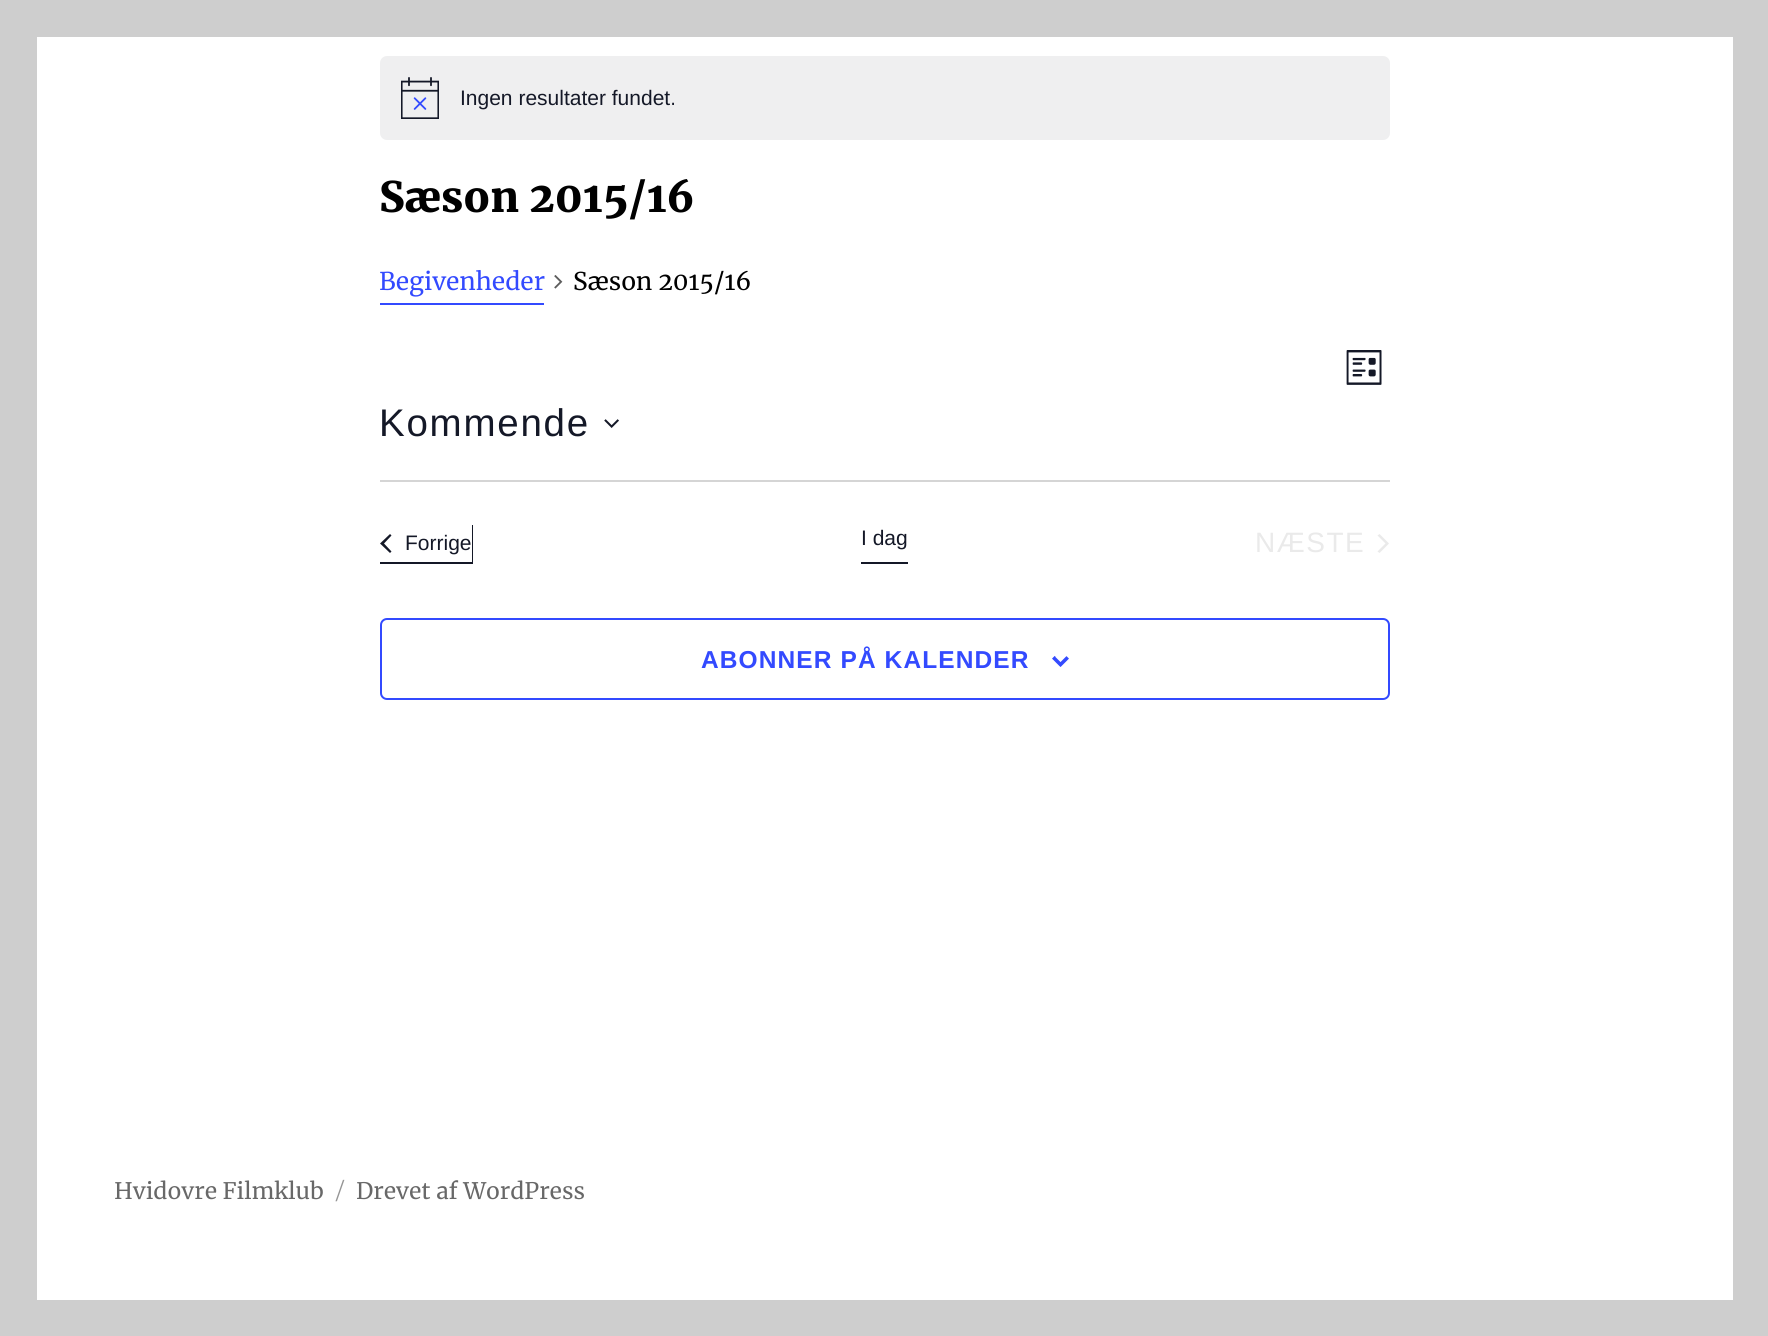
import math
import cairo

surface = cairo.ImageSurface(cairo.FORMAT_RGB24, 1768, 1336)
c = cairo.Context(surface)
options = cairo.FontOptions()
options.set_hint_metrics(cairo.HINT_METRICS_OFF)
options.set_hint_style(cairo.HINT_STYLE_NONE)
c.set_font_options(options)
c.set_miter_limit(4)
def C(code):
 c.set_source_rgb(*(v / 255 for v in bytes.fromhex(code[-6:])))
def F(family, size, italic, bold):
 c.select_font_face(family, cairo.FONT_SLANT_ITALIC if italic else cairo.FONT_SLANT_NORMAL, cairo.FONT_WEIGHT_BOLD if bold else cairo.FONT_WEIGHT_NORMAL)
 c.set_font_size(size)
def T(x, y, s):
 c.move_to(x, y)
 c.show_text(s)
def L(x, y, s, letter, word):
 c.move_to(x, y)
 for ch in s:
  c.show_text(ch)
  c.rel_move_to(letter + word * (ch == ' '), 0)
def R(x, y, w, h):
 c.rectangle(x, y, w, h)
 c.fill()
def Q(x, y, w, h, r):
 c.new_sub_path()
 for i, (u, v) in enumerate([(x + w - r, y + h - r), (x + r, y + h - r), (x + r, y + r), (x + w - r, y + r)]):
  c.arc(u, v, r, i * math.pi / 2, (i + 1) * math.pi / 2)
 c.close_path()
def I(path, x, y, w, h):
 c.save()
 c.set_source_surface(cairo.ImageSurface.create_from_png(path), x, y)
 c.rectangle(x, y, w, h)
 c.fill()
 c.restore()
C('cecece')
c.paint()
C('ffffff')
R(37,37,1696,1263)
C('efeff0')
Q(380,56,1010,84,7)
c.fill()
I('1.png',401,77,38,42)
F('Liberation Sans',21,0,0)
C('141827')
T(460,105,'Ingen resultater fundet.')
F('Merriweather Black',42,0,0)
C('000000')
T(379,212,'Sæson 2015/16')
C('334aff')
R(380,303,164,2)
F('Merriweather',24.5,0,0)
T(379,290,'Begivenheder')
I('2.png',554,275,9,14)
C('000000')
T(573,290,'Sæson 2015/16')
I('3.png',1346,350,36,35)
F('Liberation Sans',38.5,0,0)
C('141827')
L(379,436,'Kommende',1.75,0)
I('4.png',604,419,15,9)
C('d5d5d5')
R(380,480,1010,2)
C('141827')
c.new_path()
c.move_to(380,562)
c.line_to(380,564)
c.line_to(473,564)
c.line_to(473,525)
c.line_to(472,525)
c.line_to(472,562)
c.close_path()
c.fill()
c.new_path()
c.move_to(391.5,551.5)
c.line_to(390,553)
c.line_to(380,543.5)
c.line_to(390,534)
c.line_to(391.5,535.5)
c.line_to(384,543.5)
c.close_path()
c.fill()
F('Liberation Sans',21,0,0)
T(405,550,'Forrige')
R(861,562,47,2)
T(861,545,'I dag')
F('Liberation Sans',28,0,0)
C('eaeaea')
L(1255,552,'NÆSTE',1.5,0)
c.new_path()
c.move_to(1377.5,535.5)
c.line_to(1379.5,534)
c.line_to(1389,543.5)
c.line_to(1379.5,553)
c.line_to(1377.5,551.5)
c.line_to(1385.5,543.5)
c.close_path()
c.fill()
Q(381,619,1008,80,6)
C('334aff')
c.stroke()
F('Liberation Sans',24.5,0,1)
L(701,668,'ABONNER PÅ KALENDER',1.1,0)
I('5.png',1052,656,17,11)
F('Merriweather',22.75,0,0)
C('686868')
T(114,1199,'Hvidovre Filmklub')
F('Montserrat Thin',22.75,0,0)
C('959595')
T(336,1199,'/')
F('Merriweather',22.75,0,0)
C('686868')
T(356,1199,'Drevet af WordPress')
surface.write_to_png('o.png')
